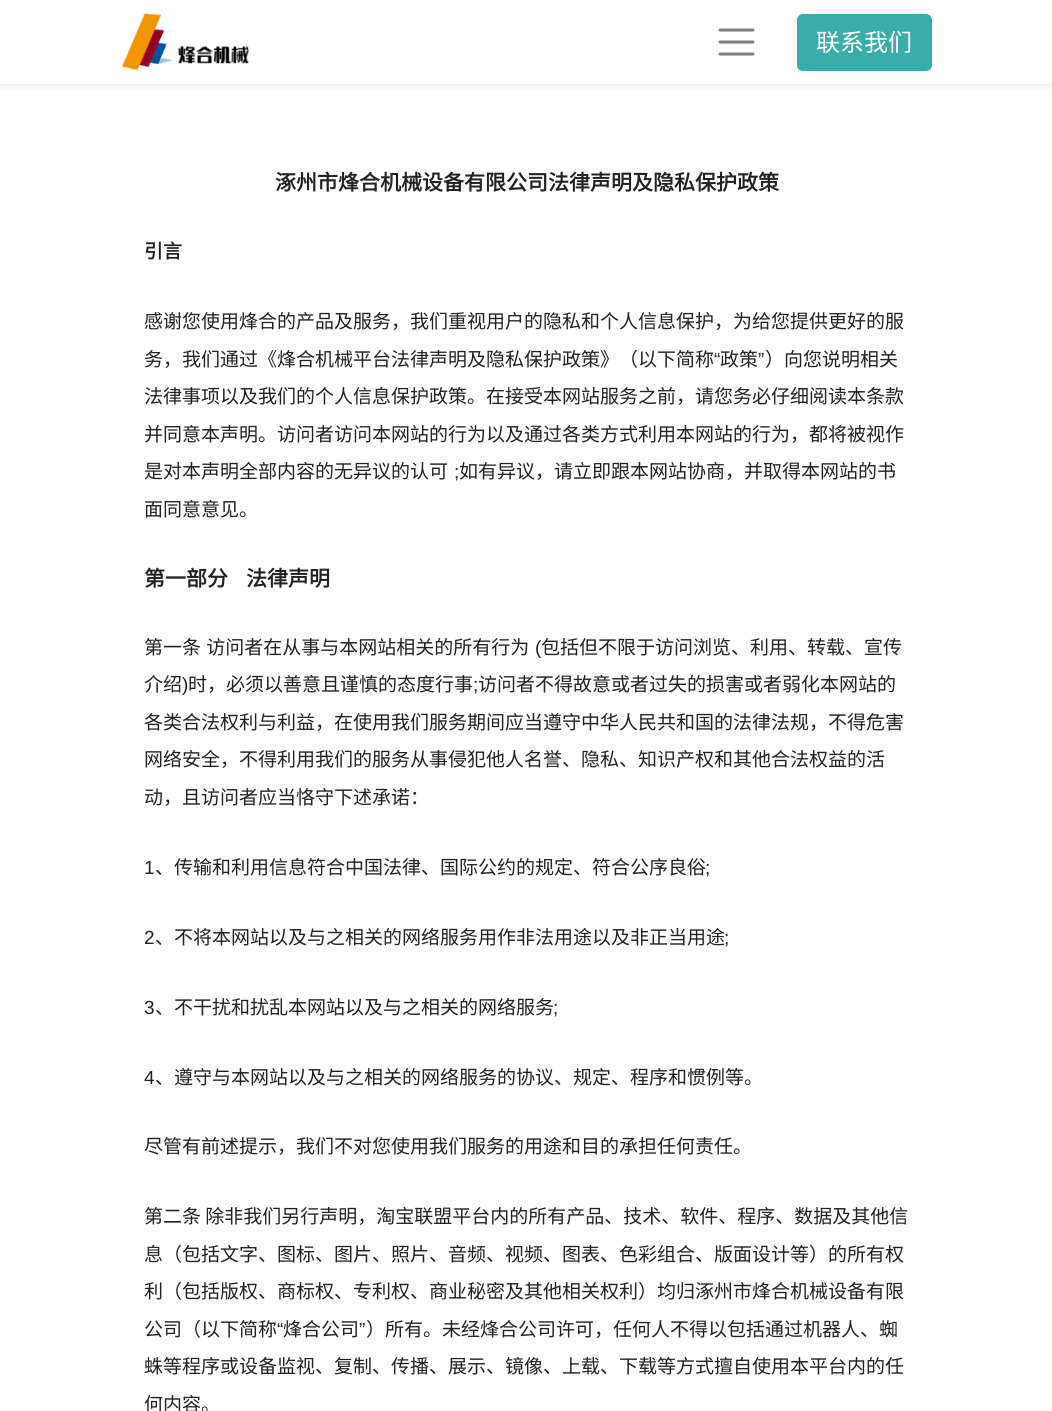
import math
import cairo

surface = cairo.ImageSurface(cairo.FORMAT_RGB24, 1052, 1411)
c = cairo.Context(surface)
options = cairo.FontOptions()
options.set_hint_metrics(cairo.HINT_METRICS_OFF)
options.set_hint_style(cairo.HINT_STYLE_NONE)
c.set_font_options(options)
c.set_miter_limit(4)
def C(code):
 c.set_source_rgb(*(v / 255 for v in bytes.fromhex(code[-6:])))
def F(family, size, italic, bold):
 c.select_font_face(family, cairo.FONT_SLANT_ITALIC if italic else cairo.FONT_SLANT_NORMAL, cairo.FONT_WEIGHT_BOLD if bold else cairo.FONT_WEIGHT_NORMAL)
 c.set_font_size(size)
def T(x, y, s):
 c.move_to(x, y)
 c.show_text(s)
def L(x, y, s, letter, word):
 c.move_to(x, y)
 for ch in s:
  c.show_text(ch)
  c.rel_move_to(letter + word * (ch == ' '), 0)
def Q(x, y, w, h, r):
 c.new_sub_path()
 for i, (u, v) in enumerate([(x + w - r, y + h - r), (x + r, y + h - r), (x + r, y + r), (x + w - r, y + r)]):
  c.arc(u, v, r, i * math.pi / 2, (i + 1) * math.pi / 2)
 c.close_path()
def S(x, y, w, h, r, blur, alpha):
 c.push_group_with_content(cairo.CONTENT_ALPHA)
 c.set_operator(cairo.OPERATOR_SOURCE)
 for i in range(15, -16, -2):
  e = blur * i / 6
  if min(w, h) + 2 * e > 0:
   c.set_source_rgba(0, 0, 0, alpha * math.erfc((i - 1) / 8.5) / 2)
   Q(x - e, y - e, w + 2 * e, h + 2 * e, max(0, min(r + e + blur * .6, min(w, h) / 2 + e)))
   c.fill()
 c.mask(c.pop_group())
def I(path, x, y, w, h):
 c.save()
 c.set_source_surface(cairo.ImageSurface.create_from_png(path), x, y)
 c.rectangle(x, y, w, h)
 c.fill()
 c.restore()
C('ffffff')
c.paint()
c.save()
c.rectangle(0,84,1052,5)
c.clip()
C('000000')
S(0,3,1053,84,0,3,.07)
c.restore()
I('1.png',121,13,129,58)
c.new_path()
c.move_to(720,30)
c.line_to(753,30)
c.move_to(720,42)
c.line_to(753,42)
c.move_to(720,54)
c.line_to(753,54)
C('808080')
c.set_line_width(3)
c.set_line_cap(cairo.LINE_CAP_ROUND)
c.stroke()
C('3aadaa')
Q(798,15,133,55,5)
c.fill_preserve()
c.set_line_width(2)
c.set_line_cap(cairo.LINE_CAP_BUTT)
c.stroke()
F('Noto Sans CJK SC',24,0,0)
C('ffffff')
T(816,51,'联系我们')
F('Noto Sans CJK SC',21,0,1)
C('222222')
T(275,190,'涿州市烽合机械设备有限公司法律声明及隐私保护政策')
F('Noto Sans CJK SC',19,0,1)
T(144,258,'引言')
F('Noto Sans CJK SC',19,0,0)
T(144,328,'感谢您使用烽合的产品及服务，我们重视用户的隐私和个人信息保护，为给您提供更好的服')
T(144,366,'务，我们通过《烽合机械平台法律声明及隐私保护政策》（以下简称')
F('Liberation Sans',19,0,0)
T(714,366,'“')
F('Noto Sans CJK SC',19,0,0)
T(720,366,'政策')
F('Liberation Sans',19,0,0)
T(758,366,'”')
F('Noto Sans CJK SC',19,0,0)
T(765,366,'）向您说明相关')
T(144,403,'法律事项以及我们的个人信息保护政策。在接受本网站服务之前，请您务必仔细阅读本条款')
T(144,441,'并同意本声明。访问者访问本网站的行为以及通过各类方式利用本网站的行为，都将被视作')
T(144,478,'是对本声明全部内容的无异议的认可')
F('Liberation Sans',19,0,0)
T(454,478,';')
F('Noto Sans CJK SC',19,0,0)
T(459,478,'如有异议，请立即跟本网站协商，并取得本网站的书')
T(144,516,'面同意意见。')
F('Noto Sans CJK SC',21,0,1)
T(144,586,'第一部分')
T(246,586,'法律声明')
F('Noto Sans CJK SC',19,0,0)
L(144,654,'第一条 访问者在从事与本网站相关的所有行为',0,1)
F('Liberation Sans',19,0,0)
T(535,654,'(')
F('Noto Sans CJK SC',19,0,0)
T(541,654,'包括但不限于访问浏览、利用、转载、宣传')
T(144,691,'介绍')
F('Liberation Sans',19,0,0)
T(182,691,')')
F('Noto Sans CJK SC',19,0,0)
T(188,691,'时，必须以善意且谨慎的态度行事')
F('Liberation Sans',19,0,0)
T(473,691,';')
F('Noto Sans CJK SC',19,0,0)
T(478,691,'访问者不得故意或者过失的损害或者弱化本网站的')
T(144,729,'各类合法权利与利益，在使用我们服务期间应当遵守中华人民共和国的法律法规，不得危害')
T(144,766,'网络安全，不得利用我们的服务从事侵犯他人名誉、隐私、知识产权和其他合法权益的活')
T(144,804,'动，且访问者应当恪守下述承诺：')
F('Liberation Sans',19,0,0)
T(144,874,'1')
F('Noto Sans CJK SC',19,0,0)
T(155,874,'、传输和利用信息符合中国法律、国际公约的规定、符合公序良俗')
F('Liberation Sans',19,0,0)
T(705,874,';')
T(144,944,'2')
F('Noto Sans CJK SC',19,0,0)
T(155,944,'、不将本网站以及与之相关的网络服务用作非法用途以及非正当用途')
F('Liberation Sans',19,0,0)
T(724,944,';')
T(144,1014,'3')
F('Noto Sans CJK SC',19,0,0)
T(155,1014,'、不干扰和扰乱本网站以及与之相关的网络服务')
F('Liberation Sans',19,0,0)
T(553,1014,';')
T(144,1084,'4')
F('Noto Sans CJK SC',19,0,0)
T(155,1084,'、遵守与本网站以及与之相关的网络服务的协议、规定、程序和惯例等。')
T(144,1153,'尽管有前述提示，我们不对您使用我们服务的用途和目的承担任何责任。')
T(144,1223,'第二条 除非我们另行声明，淘宝联盟平台内的所有产品、技术、软件、程序、数据及其他信')
T(144,1261,'息（包括文字、图标、图片、照片、音频、视频、图表、色彩组合、版面设计等）的所有权')
T(144,1298,'利（包括版权、商标权、专利权、商业秘密及其他相关权利）均归涿州市烽合机械设备有限')
T(144,1336,'公司（以下简称')
F('Liberation Sans',19,0,0)
T(277,1336,'“')
F('Noto Sans CJK SC',19,0,0)
T(283,1336,'烽合公司')
F('Liberation Sans',19,0,0)
T(359,1336,'”')
F('Noto Sans CJK SC',19,0,0)
T(366,1336,'）所有。未经烽合公司许可，任何人不得以包括通过机器人、蜘')
T(144,1373,'蛛等程序或设备监视、复制、传播、展示、镜像、上载、下载等方式擅自使用本平台内的任')
T(144,1411,'何内容。')
surface.write_to_png('o.png')
